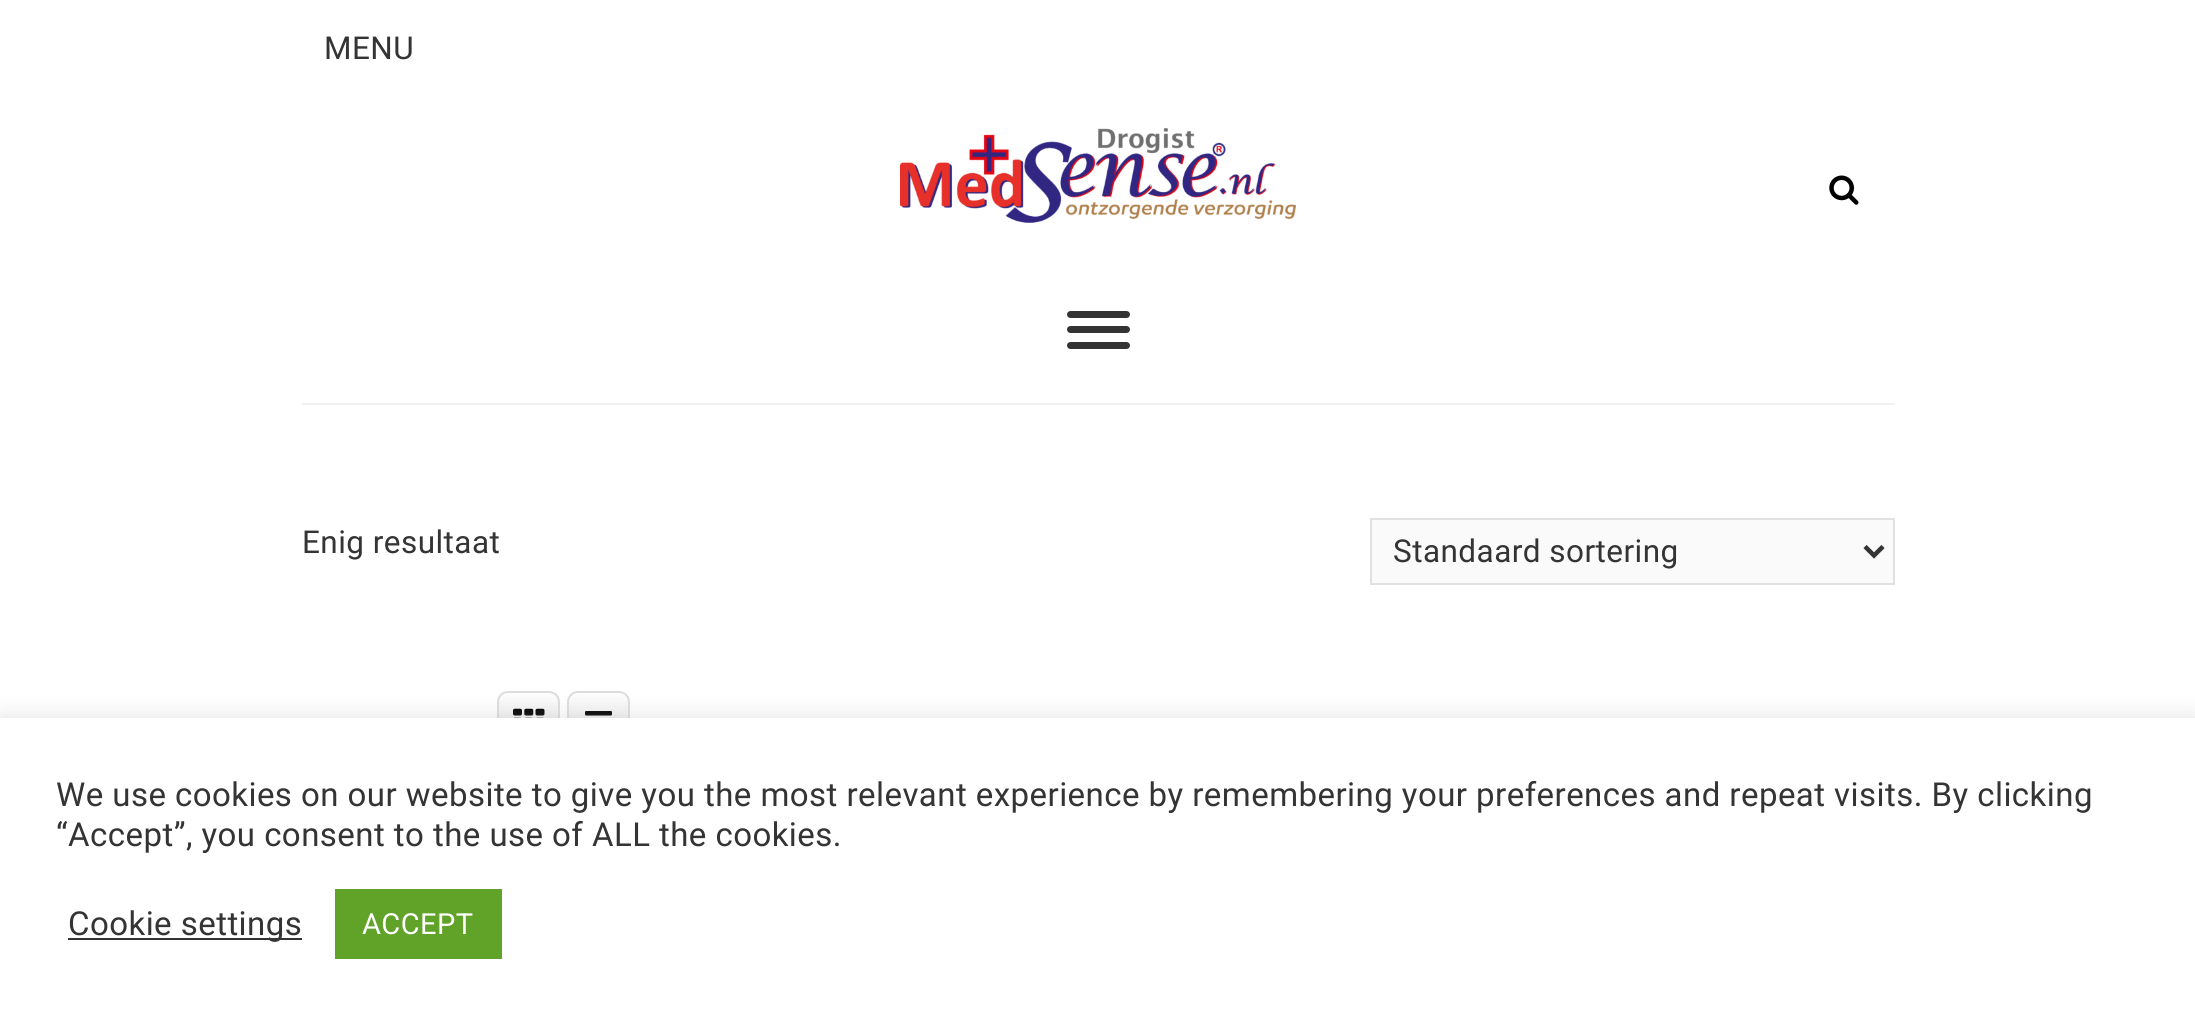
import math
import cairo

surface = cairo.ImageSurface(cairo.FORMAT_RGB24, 2195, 1025)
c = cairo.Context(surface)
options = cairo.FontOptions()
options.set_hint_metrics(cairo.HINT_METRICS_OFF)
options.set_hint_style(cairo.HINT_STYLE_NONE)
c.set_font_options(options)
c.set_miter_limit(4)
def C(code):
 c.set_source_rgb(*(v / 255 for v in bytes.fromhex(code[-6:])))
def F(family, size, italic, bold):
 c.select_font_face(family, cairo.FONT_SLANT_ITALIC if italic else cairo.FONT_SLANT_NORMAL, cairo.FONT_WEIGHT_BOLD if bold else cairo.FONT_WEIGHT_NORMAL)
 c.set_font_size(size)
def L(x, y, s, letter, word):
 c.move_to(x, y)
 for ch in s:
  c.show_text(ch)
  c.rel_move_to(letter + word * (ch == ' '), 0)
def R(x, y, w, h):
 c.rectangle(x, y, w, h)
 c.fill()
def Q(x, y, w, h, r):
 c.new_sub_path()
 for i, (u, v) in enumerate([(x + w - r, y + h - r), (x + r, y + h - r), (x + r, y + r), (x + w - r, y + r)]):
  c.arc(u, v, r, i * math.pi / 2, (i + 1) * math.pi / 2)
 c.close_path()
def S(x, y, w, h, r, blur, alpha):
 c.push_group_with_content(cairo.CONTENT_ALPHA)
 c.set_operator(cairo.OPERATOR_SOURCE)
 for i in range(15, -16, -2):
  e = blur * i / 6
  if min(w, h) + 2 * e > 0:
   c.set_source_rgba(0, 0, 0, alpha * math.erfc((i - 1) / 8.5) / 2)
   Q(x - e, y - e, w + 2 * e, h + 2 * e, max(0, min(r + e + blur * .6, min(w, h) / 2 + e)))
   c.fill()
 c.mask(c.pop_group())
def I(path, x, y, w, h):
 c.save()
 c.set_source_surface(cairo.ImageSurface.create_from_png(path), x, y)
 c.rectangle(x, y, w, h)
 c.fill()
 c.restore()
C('ffffff')
c.paint()
F('Roboto',31.5,0,0)
C('343434')
L(324,59,'MENU',.45,0)
I('1.png',900,128,396,95)
I('2.png',1829,175,30,30)
C('f2f2f2')
R(302,403,1593,2)
C('333333')
Q(1067,311,63,7,3.5)
c.fill()
Q(1067,326,63,7,3.5)
c.fill()
Q(1067,342,63,7,3.5)
c.fill()
C('343434')
L(302,553,'Enig resultaat',.45,0)
C('fafafa')
c.rectangle(1371,519,523,65)
c.fill_preserve()
C('e1e1e1')
c.stroke()
c.new_path()
c.move_to(1865,546.5)
c.line_to(1874,555.5)
c.line_to(1883,546.5)
C('343434')
c.set_line_width(4.5)
c.stroke()
L(1393,562,'Standaard sortering',.45,0)
gradient = cairo.LinearGradient(529,691,529,754)
gradient.add_color_stop_rgba(0,1,1,1,1)
gradient.add_color_stop_rgba(1,0.863,0.863,0.863,1)
c.set_source(gradient)
Q(498,692,61,61,10)
c.fill_preserve()
C('dddddd')
c.set_line_width(2)
c.stroke()
I('3.png',513,708,32,10)
gradient = cairo.LinearGradient(599,691,599,754)
gradient.add_color_stop_rgba(0,1,1,1,1)
gradient.add_color_stop_rgba(1,0.863,0.863,0.863,1)
c.set_source(gradient)
Q(568,692,61,61,10)
c.fill_preserve()
C('dddddd')
c.stroke()
I('4.png',585,711,27,5)
C('acabab')
S(0,716,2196,308,0,11,.3)
C('ffffff')
R(0,718,2195,307)
F('Roboto',33,0,0)
C('343434')
L(56,806,'We use cookies on our website to give you the most relevant experience by remembering your preferences and repeat visits. By clicking',.45,0)
L(56,846,'“Accept”, you consent to the use of ALL the cookies.',.45,0)
C('333333')
R(68,938,234,2)
C('343434')
L(68,935,'Cookie settings',.45,0)
C('61a229')
R(335,889,167,70)
F('Roboto',29,0,0)
C('ffffff')
L(362,934,'ACCEPT',.45,0)
surface.write_to_png('o.png')
